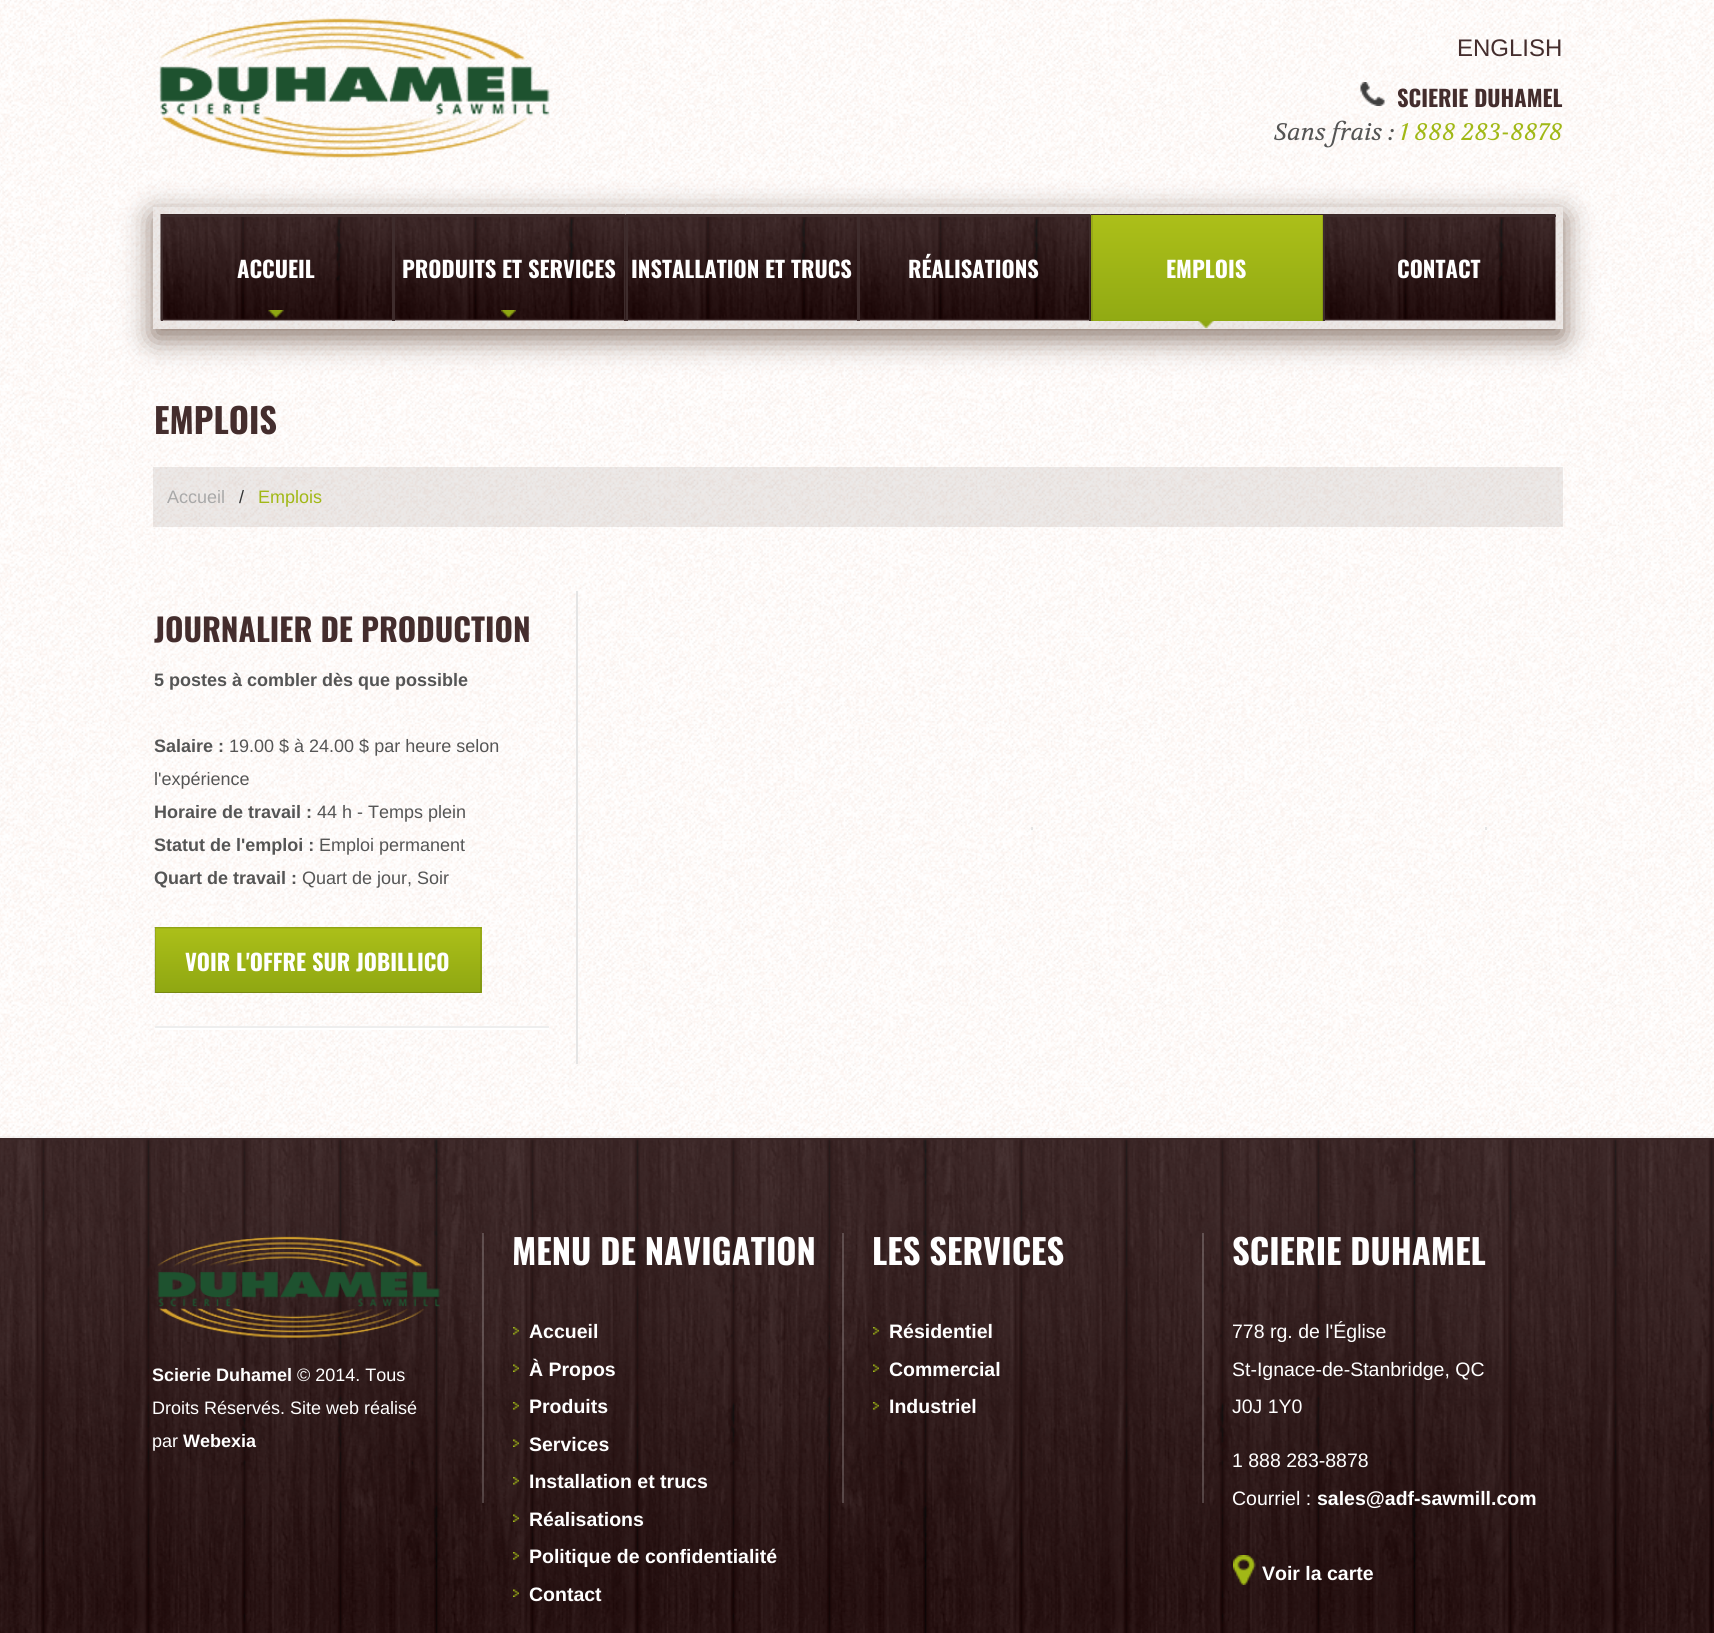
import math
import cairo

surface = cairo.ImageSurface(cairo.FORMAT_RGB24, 1714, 1633)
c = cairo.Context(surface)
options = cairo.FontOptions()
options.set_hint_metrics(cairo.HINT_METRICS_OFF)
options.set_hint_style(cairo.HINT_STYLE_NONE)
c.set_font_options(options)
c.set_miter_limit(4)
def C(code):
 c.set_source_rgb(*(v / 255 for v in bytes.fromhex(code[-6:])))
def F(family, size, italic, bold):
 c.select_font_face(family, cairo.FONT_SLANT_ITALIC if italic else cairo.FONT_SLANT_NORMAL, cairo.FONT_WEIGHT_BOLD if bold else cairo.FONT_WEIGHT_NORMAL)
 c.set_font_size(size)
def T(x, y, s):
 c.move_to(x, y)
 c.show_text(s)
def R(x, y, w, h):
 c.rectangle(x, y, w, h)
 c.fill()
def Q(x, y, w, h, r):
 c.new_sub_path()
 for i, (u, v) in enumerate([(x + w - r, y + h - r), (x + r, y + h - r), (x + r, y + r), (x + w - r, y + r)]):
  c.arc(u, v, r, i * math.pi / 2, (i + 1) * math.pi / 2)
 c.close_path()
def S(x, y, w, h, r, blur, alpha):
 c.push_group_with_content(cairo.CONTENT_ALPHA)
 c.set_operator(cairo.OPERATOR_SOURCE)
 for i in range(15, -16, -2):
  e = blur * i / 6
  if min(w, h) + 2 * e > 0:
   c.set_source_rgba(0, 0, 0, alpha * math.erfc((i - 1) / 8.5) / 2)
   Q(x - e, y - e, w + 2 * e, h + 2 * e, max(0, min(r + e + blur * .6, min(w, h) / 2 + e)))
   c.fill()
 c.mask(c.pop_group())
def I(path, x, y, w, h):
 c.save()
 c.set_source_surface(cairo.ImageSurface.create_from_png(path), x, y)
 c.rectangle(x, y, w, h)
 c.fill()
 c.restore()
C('ffffff')
c.paint()
I('1.png',0,0,1714,1138)
I('2.png',159,18,391,140)
F('Liberation Sans',24,0,0)
C('442d2d')
T(1457,56,'ENGLISH')
I('3.png',1360,82,25,24)
F('Oswald',22.5,0,1)
T(1397,107,'SCIERIE DUHAMEL')
F('Volkhov',24,1,0)
C('555555')
T(1274,140,'Sans frais :')
C('a1b816')
T(1400,140,'1 888 283-8878')
c.save()
c.set_fill_rule(cairo.FILL_RULE_EVEN_ODD)
c.new_path()
c.move_to(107,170)
c.line_to(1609,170)
c.line_to(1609,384)
c.line_to(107,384)
c.close_path()
c.move_to(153,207)
c.line_to(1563,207)
c.line_to(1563,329)
c.line_to(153,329)
c.close_path()
c.clip()
C('877368')
S(153,216,1410,122,0,15,1)
c.restore()
c.rectangle(157,211,1402,114)
c.set_source_rgba(0.506,0.443,0.42,0.15)
c.set_line_width(8)
c.stroke()
I('4.png',160,214,233,107)
C('3e2c2c')
R(392,215,1,106)
R(161,215,2,106)
R(162,215,230,2)
F('Oswald',22.5,0,1)
C('ffffff')
T(237,278,'ACCUEIL')
I('5.png',268,310,16,8)
I('6.png',393,214,233,107)
C('3e2c2c')
R(624,215,2,106)
R(393,215,2,106)
R(395,215,229,2)
C('ffffff')
T(402,278,'PRODUITS ET SERVICES')
I('7.png',501,310,15,8)
I('8.png',625,214,233,107)
C('3e2c2c')
R(857,215,1,106)
R(626,215,2,106)
R(627,215,230,2)
C('ffffff')
T(631,278,'INSTALLATION ET TRUCS')
I('9.png',858,214,233,107)
C('3e2c2c')
R(1089,215,2,106)
R(858,215,2,106)
R(860,215,229,2)
C('ffffff')
T(908,278,'RÉALISATIONS')
I('10.png',1090,214,233,107)
gradient = cairo.LinearGradient(1207,215,1207,321)
gradient.add_color_stop_rgba(0,0.675,0.749,0.098,1)
gradient.add_color_stop_rgba(1,0.569,0.667,0.075,1)
c.set_source(gradient)
R(1091,215,232,106)
c.set_source_rgba(0,0,0,0.1)
R(1322,215,1,106)
R(1091,215,2,106)
C('ffffff')
T(1166,278,'EMPLOIS')
I('11.png',1198,321,16,7)
I('12.png',1323,214,233,107)
C('3e2c2c')
R(1323,215,2,106)
R(1325,215,231,2)
C('ffffff')
T(1397,278,'CONTACT')
F('Oswald',34.5,0,1)
C('442d2d')
T(154,434,'EMPLOIS')
c.set_source_rgba(0.506,0.443,0.42,0.15)
R(153,467,1410,60)
F('Liberation Sans',18,0,0)
C('a9a9a9')
T(167,503,'Accueil')
C('333333')
T(239,503,'/')
C('a1b816')
T(258,503,'Emplois')
C('e5e5e5')
R(576,591,2,473)
F('Oswald',31.5,0,1)
C('442d2d')
T(154,642,'JOURNALIER DE PRODUCTION')
F('Liberation Sans',18,0,1)
C('555555')
T(154,686,'5 postes à combler dès que possible')
T(154,752,'Salaire :')
F('Liberation Sans',18,0,0)
T(229,752,'19.00 $ à 24.00 $ par heure selon')
T(154,785,'l\'expérience')
F('Liberation Sans',18,0,1)
T(154,818,'Horaire de travail :')
F('Liberation Sans',18,0,0)
T(317,818,'44 h - Temps plein')
F('Liberation Sans',18,0,1)
T(154,851,'Statut de l\'emploi :')
F('Liberation Sans',18,0,0)
T(319,851,'Emploi permanent')
F('Liberation Sans',18,0,1)
T(154,884,'Quart de travail :')
F('Liberation Sans',18,0,0)
T(302,884,'Quart de jour, Soir')
C('a0b516')
R(155,927,327,66)
gradient = cairo.LinearGradient(318,929,318,992)
gradient.add_color_stop_rgba(0,0.671,0.749,0.098,1)
gradient.add_color_stop_rgba(1,0.561,0.655,0.071,1)
c.set_source(gradient)
R(155,929,327,63)
C('90a314')
c.new_path()
c.move_to(154,927)
c.line_to(482,927)
c.line_to(480,928)
c.line_to(156,928)
c.close_path()
c.fill()
c.set_source_rgba(0,0,0,0.1)
c.new_path()
c.move_to(482,927)
c.line_to(482,993)
c.line_to(480,992)
c.line_to(480,928)
c.close_path()
c.fill()
c.set_source_rgba(0,0,0,0.25)
c.new_path()
c.move_to(482,993)
c.line_to(154,993)
c.line_to(156,992)
c.line_to(480,992)
c.close_path()
c.fill()
c.set_source_rgba(0,0,0,0.1)
c.new_path()
c.move_to(154,993)
c.line_to(154,927)
c.line_to(156,928)
c.line_to(156,992)
c.close_path()
c.fill()
F('Oswald',22.5,0,1)
C('ffffff')
T(185,971,'VOIR L\'OFFRE SUR JOBILLICO')
C('eeeeee')
R(155,1026,394,2)
C('ffffff')
R(155,1028,394,2)
C('e5e5e5')
R(1031,827,2,3)
R(1485,827,2,3)
I('13.png',0,1138,1714,495)
c.set_source_rgba(0.843,0.843,0.843,0.2)
R(0,1136,1714,2)
I('14.png',157,1236,283,102)
F('Liberation Sans',18,0,1)
C('ffffff')
T(152,1381,'Scierie Duhamel')
F('Liberation Sans',18,0,0)
T(297,1381,'© 2014. Tous')
T(152,1414,'Droits Réservés. Site web réalisé')
T(152,1447,'par')
F('Liberation Sans',18,0,1)
T(183,1447,'Webexia')
c.set_source_rgba(1,1,1,0.2)
R(482,1233,2,270)
F('Oswald',34.5,0,1)
C('ffffff')
T(512,1265,'MENU DE NAVIGATION')
I('15.png',513,1327,6,8)
F('Liberation Sans',19.5,0,1)
T(529,1338,'Accueil')
I('16.png',513,1364,6,8)
T(529,1376,'À Propos')
I('17.png',513,1402,6,8)
T(529,1413,'Produits')
I('18.png',513,1439,6,8)
T(529,1451,'Services')
I('19.png',513,1477,6,8)
T(529,1488,'Installation et trucs')
I('20.png',513,1514,6,8)
T(529,1526,'Réalisations')
I('21.png',513,1552,6,8)
T(529,1563,'Politique de confidentialité')
I('22.png',513,1589,6,8)
T(529,1601,'Contact')
c.set_source_rgba(1,1,1,0.2)
R(842,1233,2,270)
F('Oswald',34.5,0,1)
C('ffffff')
T(872,1265,'LES SERVICES')
I('23.png',873,1327,6,8)
F('Liberation Sans',19.5,0,1)
T(889,1338,'Résidentiel')
I('24.png',873,1364,6,8)
T(889,1376,'Commercial')
I('25.png',873,1402,6,8)
T(889,1413,'Industriel')
c.set_source_rgba(1,1,1,0.2)
R(1202,1233,2,270)
F('Oswald',34.5,0,1)
C('ffffff')
T(1232,1265,'SCIERIE DUHAMEL')
F('Liberation Sans',19.5,0,0)
T(1232,1338,'778 rg. de l\'Église')
T(1232,1376,'St-Ignace-de-Stanbridge, QC')
T(1232,1413,'J0J 1Y0')
T(1232,1467,'1 888 283-8878')
T(1232,1505,'Courriel :')
F('Liberation Sans',19.5,0,1)
T(1317,1505,'sales@adf-sawmill.com')
I('26.png',1233,1555,23,30)
T(1262,1580,'Voir la carte')
surface.write_to_png('o.png')
